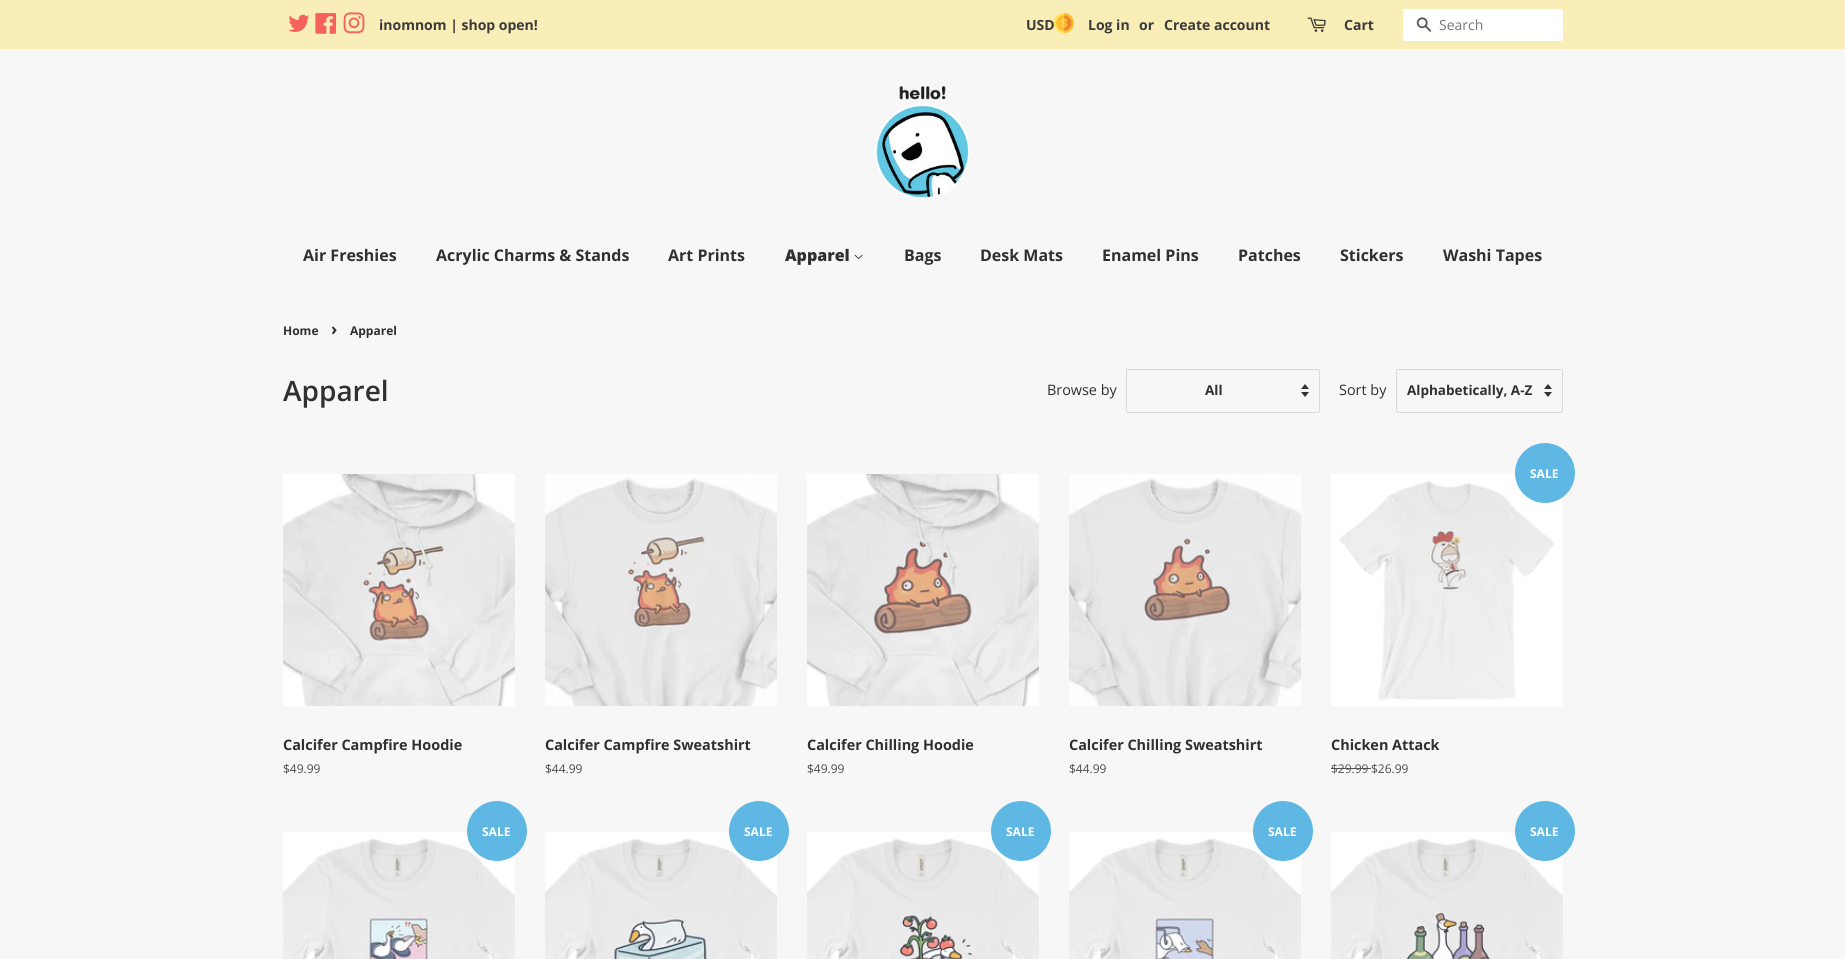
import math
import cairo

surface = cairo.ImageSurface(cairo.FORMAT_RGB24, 1845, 959)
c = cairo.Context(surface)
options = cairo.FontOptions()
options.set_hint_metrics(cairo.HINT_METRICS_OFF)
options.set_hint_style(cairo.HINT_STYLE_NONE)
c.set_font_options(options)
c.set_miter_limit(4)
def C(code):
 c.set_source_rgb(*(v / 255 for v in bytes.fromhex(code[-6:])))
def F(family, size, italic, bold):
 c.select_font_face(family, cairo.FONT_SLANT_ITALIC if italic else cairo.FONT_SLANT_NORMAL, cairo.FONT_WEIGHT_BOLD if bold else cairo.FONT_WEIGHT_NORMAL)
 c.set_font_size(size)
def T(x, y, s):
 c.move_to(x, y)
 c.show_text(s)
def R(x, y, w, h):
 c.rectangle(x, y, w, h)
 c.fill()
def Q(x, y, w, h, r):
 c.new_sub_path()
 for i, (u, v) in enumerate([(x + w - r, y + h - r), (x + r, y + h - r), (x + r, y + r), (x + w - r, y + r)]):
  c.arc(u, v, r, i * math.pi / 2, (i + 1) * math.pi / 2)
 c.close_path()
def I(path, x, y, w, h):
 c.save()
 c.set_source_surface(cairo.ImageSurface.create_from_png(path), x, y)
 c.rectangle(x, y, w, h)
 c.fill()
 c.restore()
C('f7f7f7')
c.paint()
C('faeeb8')
R(0,0,1845,49)
I('1.png',288,14,22,18)
I('2.png',315,13,21,21)
I('3.png',343,12,22,22)
F('Open Sans',14,0,1)
C('3a3a3a')
T(379,30,'inomnom | shop open!')
T(1026,30,'USD')
I('4.png',1054,13,20,20)
T(1088,30,'Log in')
T(1139,30,'or')
T(1164,30,'Create account')
I('5.png',1307,17,19,15)
T(1344,30,'Cart')
C('ffffff')
Q(1403,9,160,32,2)
c.fill()
I('6.png',1416,17,16,15)
F('Open Sans',14,0,0)
C('757575')
T(1439,30,'Search')
I('7.png',875,86,95,113)
F('Open Sans',16,0,1)
C('303030')
T(303,261,'Air Freshies')
T(436,261,'Acrylic Charms & Stands')
T(668,261,'Art Prints')
F('Open Sans ExtraBold',16,0,0)
T(785,261,'Apparel')
I('8.png',854,254,9,6)
F('Open Sans',16,0,1)
T(904,261,'Bags')
T(980,261,'Desk Mats')
T(1102,261,'Enamel Pins')
T(1238,261,'Patches')
T(1340,261,'Stickers')
T(1443,261,'Washi Tapes')
F('Open Sans',12,0,1)
T(283,335,'Home')
F('Open Sans',17,0,1)
T(331,335,'›')
F('Open Sans',12,0,1)
T(350,335,'Apparel')
F('Open Sans SemiBold',28,0,0)
T(283,401,'Apparel')
F('Open Sans',14.4,0,0)
T(1047,395,'Browse by')
I('9.png',1301,384,8,13)
Q(1126.5,369.5,193,43,1.5)
C('d9d9d9')
c.set_line_width(1)
c.stroke()
F('Open Sans',13.5,0,1)
C('303030')
T(1205,395,'All')
F('Open Sans',14.4,0,0)
T(1339,395,'Sort by')
I('9.png',1544,384,8,13)
Q(1396.5,369.5,166,43,1.5)
C('d9d9d9')
c.stroke()
F('Open Sans',13.5,0,1)
C('303030')
T(1407,395,'Alphabetically, A-Z')
I('10.png',283,474,232,232)
F('Open Sans',14.4,0,1)
T(283,750,'Calcifer Campfire Hoodie')
F('Open Sans',12,0,0)
C('4a4a4a')
T(283,773,'$49.99')
I('11.png',545,474,232,232)
F('Open Sans',14.4,0,1)
C('303030')
T(545,750,'Calcifer Campfire Sweatshirt')
F('Open Sans',12,0,0)
C('4a4a4a')
T(545,773,'$44.99')
I('12.png',807,474,232,232)
F('Open Sans',14.4,0,1)
C('303030')
T(807,750,'Calcifer Chilling Hoodie')
F('Open Sans',12,0,0)
C('4a4a4a')
T(807,773,'$49.99')
I('13.png',1069,474,232,232)
F('Open Sans',14.4,0,1)
C('303030')
T(1069,750,'Calcifer Chilling Sweatshirt')
F('Open Sans',12,0,0)
C('4a4a4a')
T(1069,773,'$44.99')
I('14.png',1331,474,232,232)
C('5fb8e4')
c.arc(1545,473,30,0,2 * math.pi)
c.fill()
F('Open Sans',12,0,1)
C('ffffff')
T(1530,478,'SALE')
F('Open Sans',14.4,0,1)
C('303030')
T(1331,750,'Chicken Attack')
F('Open Sans',12,0,0)
C('535353')
T(1331,773,'$29.99')
R(1331,768,40,1)
C('4a4a4a')
T(1371,773,'$26.99')
I('15.png',283,832,232,127)
C('5fb8e4')
c.arc(497,831,30,0,2 * math.pi)
c.fill()
F('Open Sans',12,0,1)
C('ffffff')
T(482,836,'SALE')
I('16.png',545,832,232,127)
C('5fb8e4')
c.arc(759,831,30,0,2 * math.pi)
c.fill()
C('ffffff')
T(744,836,'SALE')
I('17.png',807,832,232,127)
C('5fb8e4')
c.arc(1021,831,30,0,2 * math.pi)
c.fill()
C('ffffff')
T(1006,836,'SALE')
I('18.png',1069,832,232,127)
C('5fb8e4')
c.arc(1283,831,30,0,2 * math.pi)
c.fill()
C('ffffff')
T(1268,836,'SALE')
I('19.png',1331,832,232,127)
C('5fb8e4')
c.arc(1545,831,30,0,2 * math.pi)
c.fill()
C('ffffff')
T(1530,836,'SALE')
surface.write_to_png('o.png')
